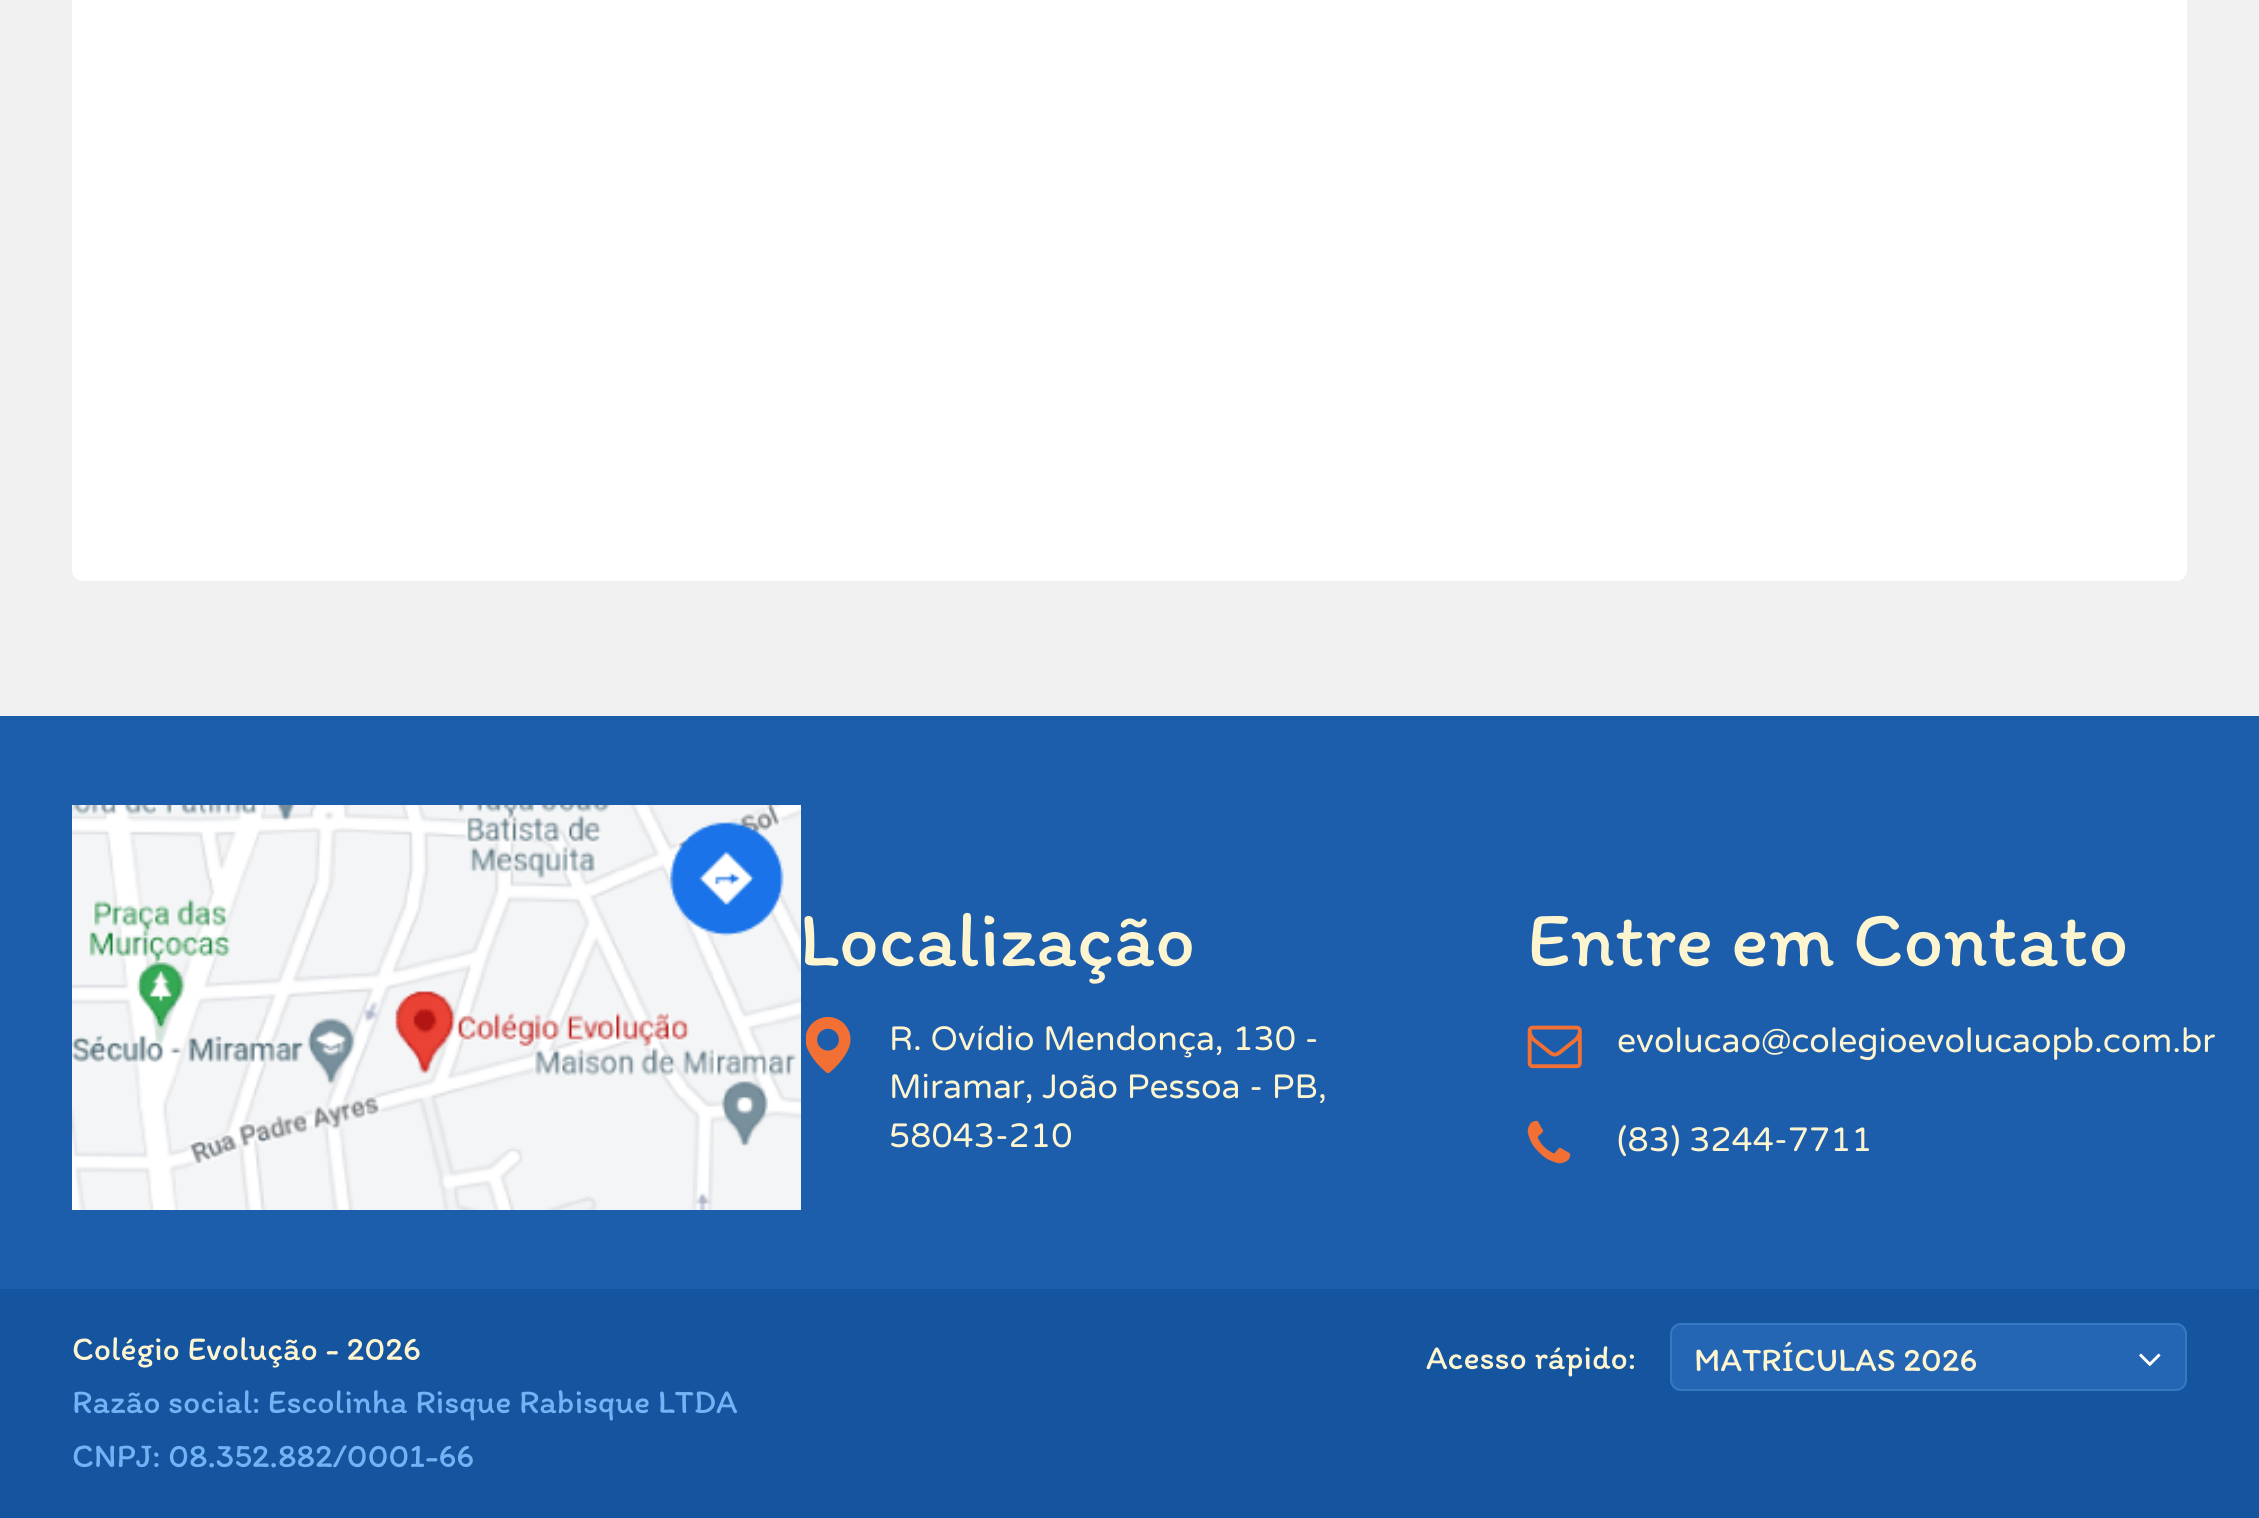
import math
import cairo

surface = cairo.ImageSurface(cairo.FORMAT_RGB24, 2259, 1518)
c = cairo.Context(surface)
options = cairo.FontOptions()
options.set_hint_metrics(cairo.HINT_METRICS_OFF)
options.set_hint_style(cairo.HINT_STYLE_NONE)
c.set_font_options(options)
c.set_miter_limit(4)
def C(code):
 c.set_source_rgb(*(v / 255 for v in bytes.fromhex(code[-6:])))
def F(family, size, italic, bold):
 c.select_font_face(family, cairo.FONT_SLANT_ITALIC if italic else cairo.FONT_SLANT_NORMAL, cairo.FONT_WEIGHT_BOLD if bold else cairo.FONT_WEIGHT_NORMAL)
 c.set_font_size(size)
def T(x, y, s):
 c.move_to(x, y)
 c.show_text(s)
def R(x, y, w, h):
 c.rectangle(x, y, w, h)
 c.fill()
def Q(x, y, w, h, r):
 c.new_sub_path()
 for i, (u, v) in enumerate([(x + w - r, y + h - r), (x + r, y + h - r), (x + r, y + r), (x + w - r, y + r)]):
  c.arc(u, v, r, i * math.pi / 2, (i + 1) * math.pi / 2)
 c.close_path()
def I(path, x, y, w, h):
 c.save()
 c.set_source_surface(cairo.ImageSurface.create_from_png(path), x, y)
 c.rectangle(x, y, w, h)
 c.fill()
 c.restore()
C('f1f1f1')
c.paint()
C('ffffff')
c.new_path()
c.move_to(72,-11)
c.line_to(2187,-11)
c.line_to(2187,570)
c.curve_to(2187,576,2182,581,2176,581)
c.line_to(83,581)
c.curve_to(77,581,72,576,72,570)
c.close_path()
c.fill()
C('1d5eac')
R(0,716,2259,573)
I('1.png',72,805,729,405)
F('Itim',78.75,0,0)
C('fdf4d0')
T(799,966,'Localização')
I('2.png',806,1017,45,56)
F('Varela Round',33.75,0,0)
T(889,1050,'R. Ovídio Mendonça, 130 -')
T(889,1098,'Miramar, João Pessoa - PB,')
T(889,1147,'58043-210')
F('Itim',78.75,0,0)
T(1527,966,'Entre em Contato')
I('3.png',1527,1025,55,44)
F('Varela Round',33.75,0,0)
T(1617,1052,'evolucao@colegioevolucaopb.com.br')
I('4.png',1527,1120,44,44)
T(1617,1151,'(83) 3244-7711')
C('15559f')
R(0,1289,2259,229)
F('Itim',33.75,0,0)
C('fdf4d0')
T(72,1360,'Colégio Evolução - 2026')
C('71b3f4')
T(72,1413,'Razão social: Escolinha Risque Rabisque LTDA')
T(72,1467,'CNPJ: 08.352.882/0001-66')
C('fdf4d0')
T(1426,1369,'Acesso rápido:')
C('2466b4')
Q(1671,1324,515,66,10)
c.fill_preserve()
C('3978c2')
c.stroke()
C('fdf4d0')
T(1694,1371,'MATRÍCULAS 2026')
I('5.png',2139,1353,22,13)
surface.write_to_png('o.png')
